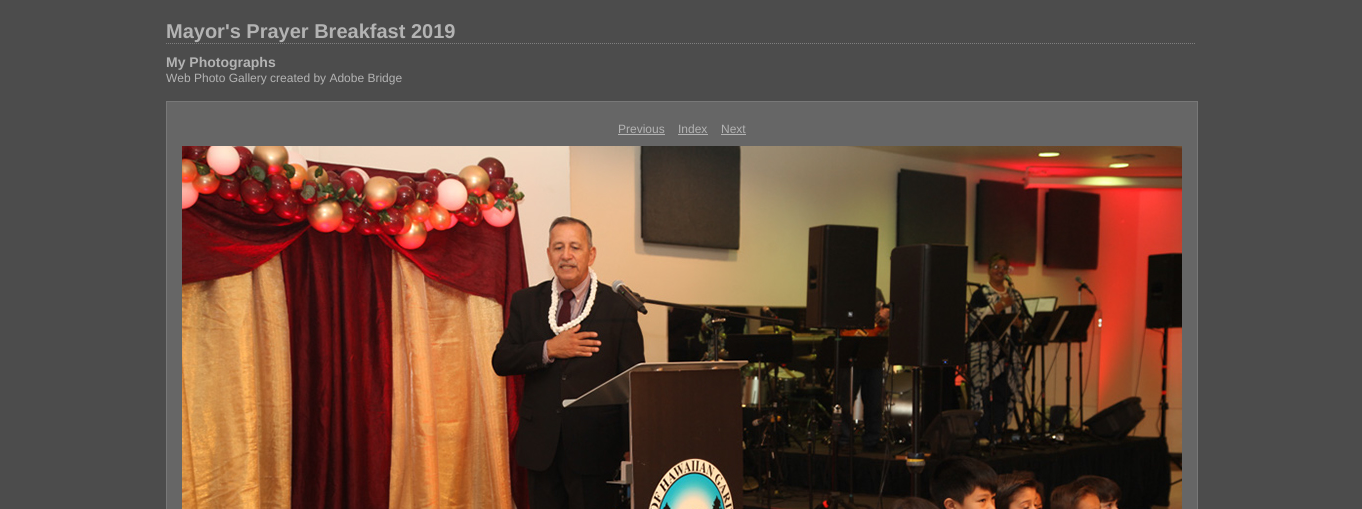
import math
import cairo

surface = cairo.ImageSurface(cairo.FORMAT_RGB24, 1362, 509)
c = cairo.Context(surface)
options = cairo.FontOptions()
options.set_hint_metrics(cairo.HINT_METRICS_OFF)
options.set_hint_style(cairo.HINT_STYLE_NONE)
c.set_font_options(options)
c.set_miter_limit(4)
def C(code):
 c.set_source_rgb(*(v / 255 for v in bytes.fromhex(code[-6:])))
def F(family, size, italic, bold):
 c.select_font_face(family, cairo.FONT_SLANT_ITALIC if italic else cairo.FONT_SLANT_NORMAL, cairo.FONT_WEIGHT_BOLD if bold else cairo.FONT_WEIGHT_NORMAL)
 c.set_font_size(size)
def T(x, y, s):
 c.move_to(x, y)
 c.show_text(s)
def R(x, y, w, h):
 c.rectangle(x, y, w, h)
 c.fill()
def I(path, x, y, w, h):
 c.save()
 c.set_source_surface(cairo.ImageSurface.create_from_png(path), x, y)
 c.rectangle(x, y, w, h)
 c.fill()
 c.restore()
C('4c4c4c')
c.paint()
c.new_path()
c.move_to(166,43.5)
c.line_to(1196,43.5)
C('7f7f7f')
c.set_line_width(1)
c.set_dash([1,1])
c.stroke()
F('Liberation Sans',20,0,1)
C('b3b3b3')
T(166,38,'Mayor\'s Prayer Breakfast 2019')
F('Liberation Sans',14,0,1)
T(166,67,'My Photographs')
F('Liberation Sans',12,0,0)
T(166,82,'Web Photo Gallery created by Adobe Bridge')
C('666666')
c.rectangle(166.5,101.5,1031,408)
c.fill_preserve()
C('787878')
c.set_dash([])
c.stroke()
C('b3b3b3')
T(618,133,'Previous')
R(618,134,47,1)
T(678,133,'Index')
R(678,134,30,1)
T(721,133,'Next')
R(721,134,25,1)
I('1.png',182,146,1000,363)
surface.write_to_png('o.png')
